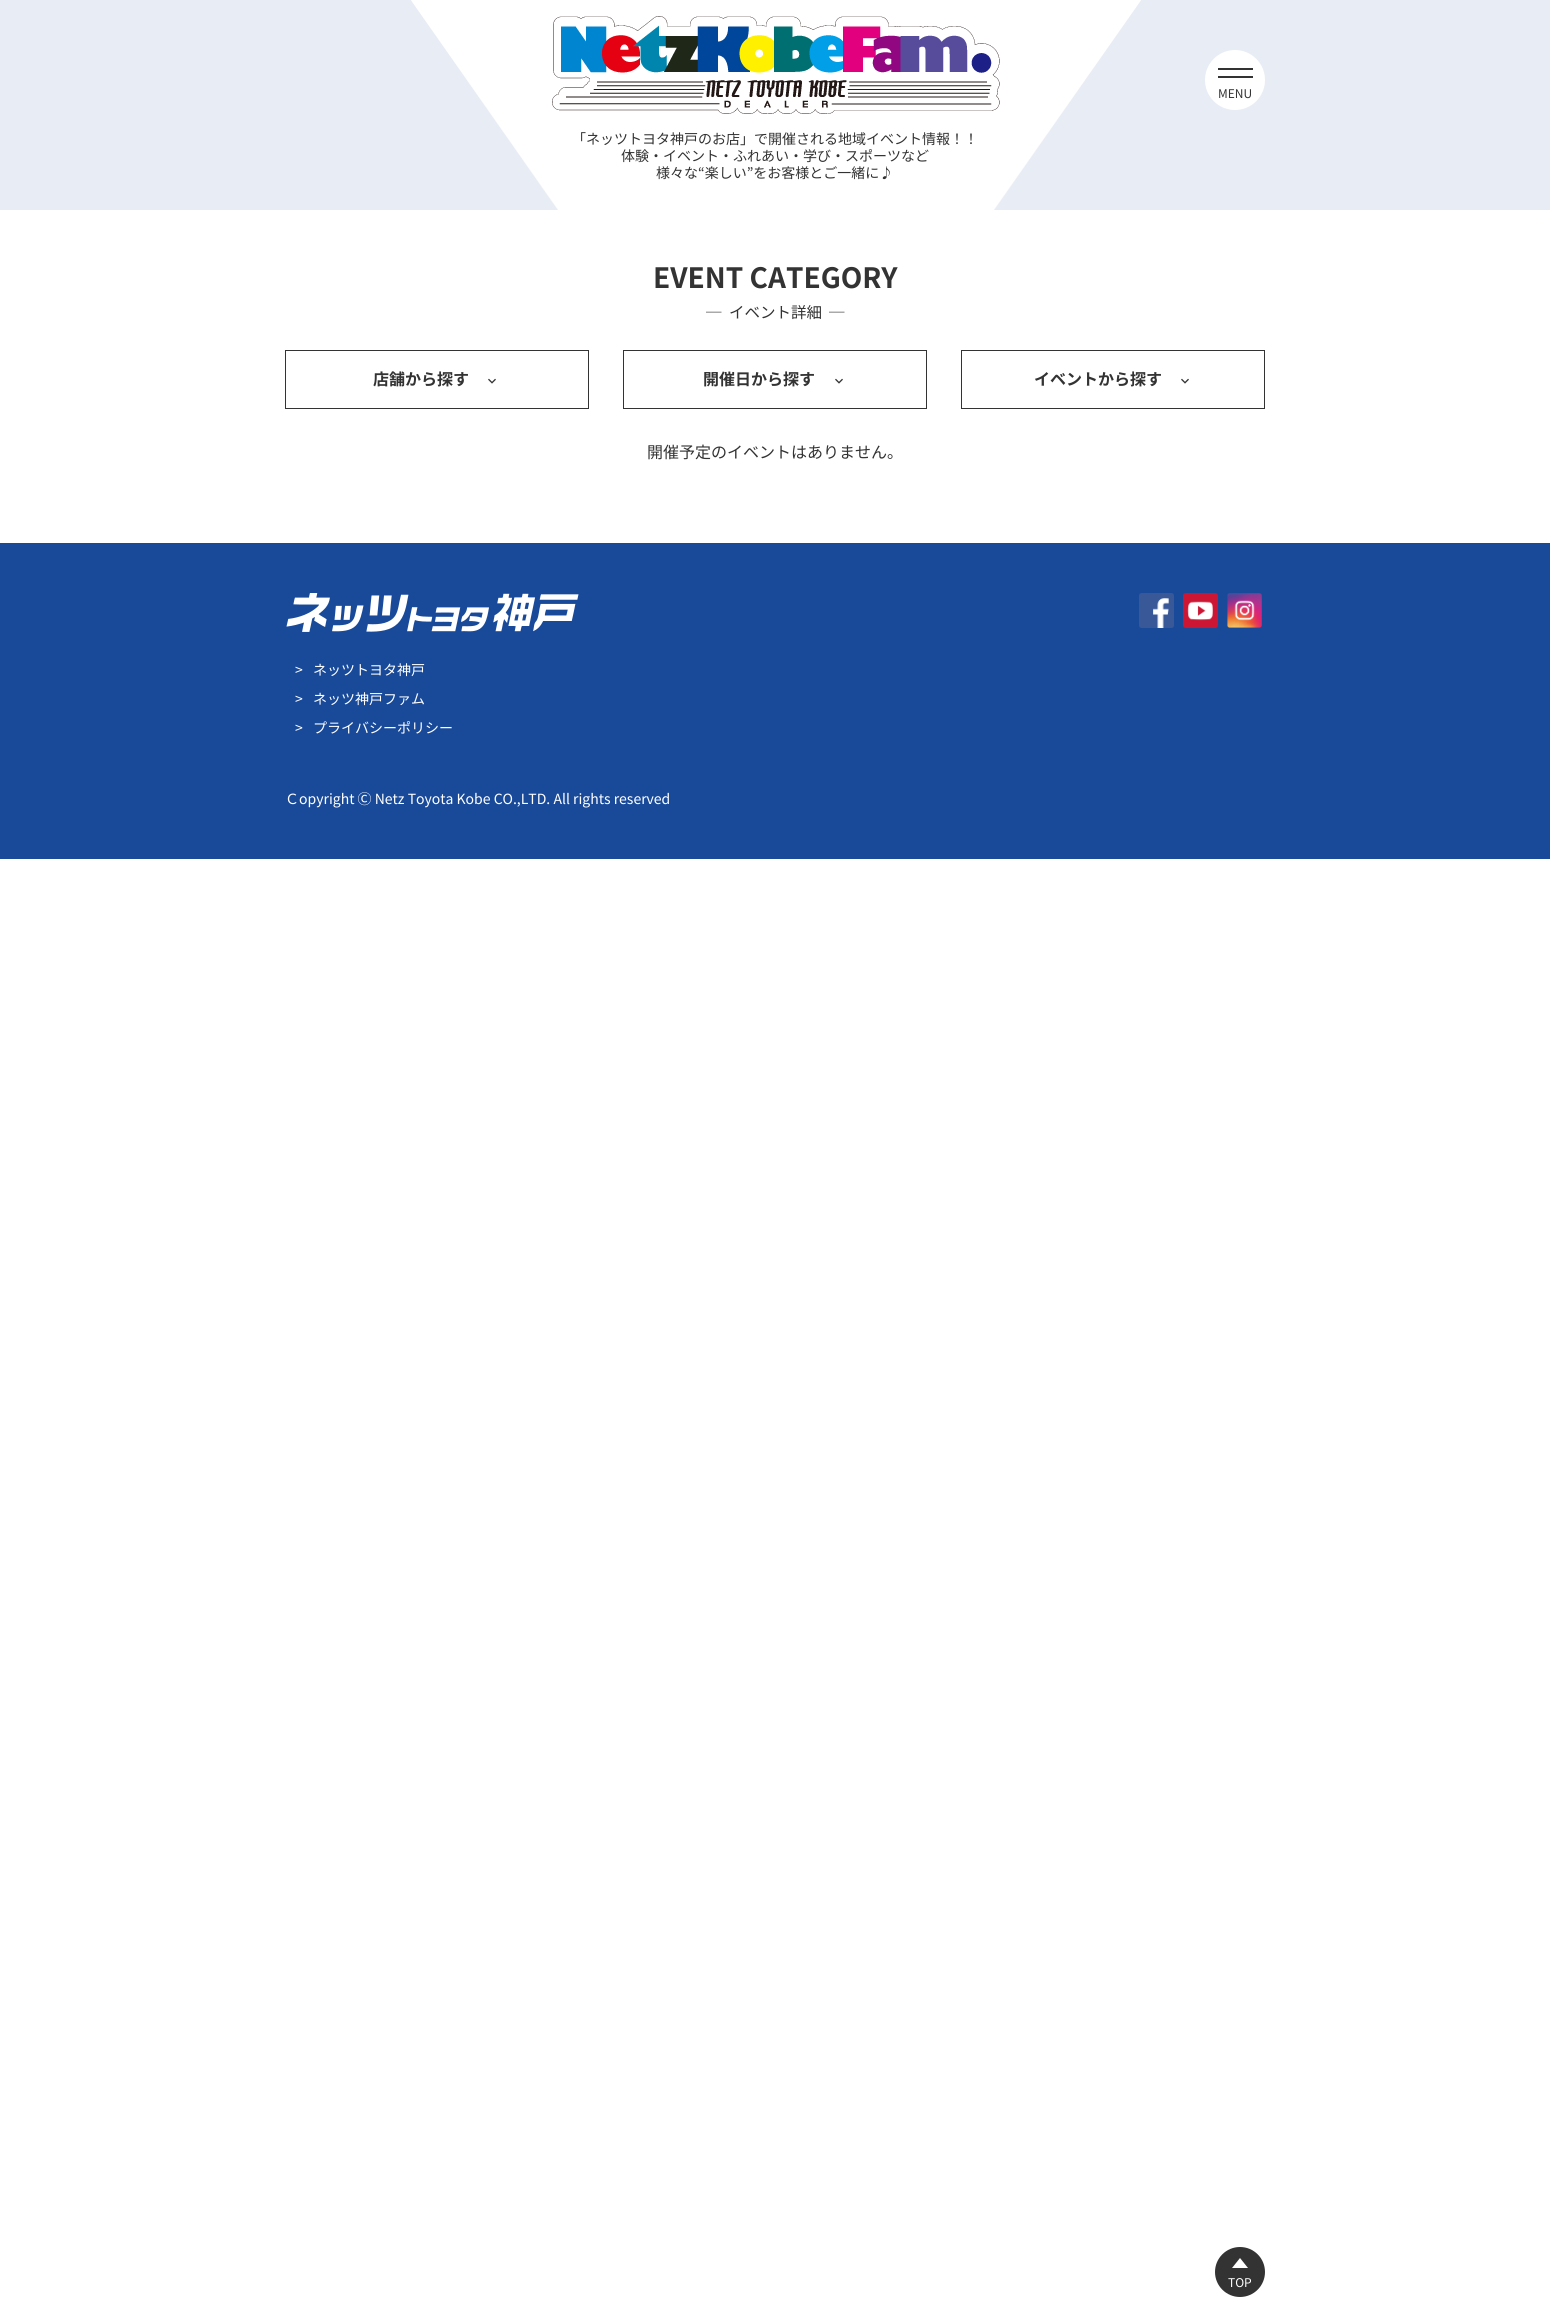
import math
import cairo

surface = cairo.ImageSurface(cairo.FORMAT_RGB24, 1550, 2307)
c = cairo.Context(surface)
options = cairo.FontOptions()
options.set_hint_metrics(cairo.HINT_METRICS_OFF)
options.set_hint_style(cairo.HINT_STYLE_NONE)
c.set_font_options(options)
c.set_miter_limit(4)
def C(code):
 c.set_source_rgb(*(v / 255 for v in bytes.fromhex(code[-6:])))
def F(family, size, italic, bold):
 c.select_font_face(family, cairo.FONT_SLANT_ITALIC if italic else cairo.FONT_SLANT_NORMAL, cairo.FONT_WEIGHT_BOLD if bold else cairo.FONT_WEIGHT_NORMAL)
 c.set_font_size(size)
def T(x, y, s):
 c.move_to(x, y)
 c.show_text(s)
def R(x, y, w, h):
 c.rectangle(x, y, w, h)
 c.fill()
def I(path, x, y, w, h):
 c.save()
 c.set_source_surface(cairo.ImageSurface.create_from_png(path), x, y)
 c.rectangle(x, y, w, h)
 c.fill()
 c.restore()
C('ffffff')
c.paint()
C('e8ecf4')
R(0,0,1550,210)
I('1.png',411,0,730,210)
C('ffffff')
c.arc(1235,80,30,0,2 * math.pi)
c.fill()
C('333333')
R(1218,68,35,2)
R(1218,76,35,2)
F('Noto Sans JP',12,0,0)
T(1218,98,'MENU')
I('2.png',552,16,448,98)
F('Noto Sans JP',14,0,0)
T(572,144,'「ネッツトヨタ神戸のお店」で開催される地域イベント情報！！')
T(621,161,'体験・イベント・ふれあい・学び・スポーツなど')
T(656,178,'様々な“楽しい”をお客様とご一緒に♪')
F('Noto Sans JP',28,0,1)
T(653,288,'EVENT CATEGORY')
F('Noto Sans JP',15.5,0,0)
T(706,318,'─')
T(729,318,'イベント詳細')
T(829,318,'─')
c.rectangle(285.5,350.5,303,58)
c.set_line_width(1)
c.stroke()
F('Noto Sans JP',16,0,1)
T(373,385,'店舗から探す')
I('3.png',488,378,8,6)
c.rectangle(623.5,350.5,303,58)
c.stroke()
T(703,385,'開催日から探す')
I('3.png',835,378,8,6)
c.rectangle(961.5,350.5,303,58)
c.stroke()
T(1034,385,'イベントから探す')
I('3.png',1181,378,8,6)
F('Noto Sans JP',16,0,0)
T(647,458,'開催予定のイベントはありません。')
C('194a9a')
R(0,543,1550,316)
I('4.png',1139,593,35,35)
I('5.png',1183,593,35,35)
I('6.png',1227,593,35,35)
I('7.png',286,593,293,39)
F('Noto Sans JP',14,0,0)
C('ffffff')
T(295,675,'>')
T(313,675,'ネッツトヨタ神戸')
T(295,704,'>')
T(313,704,'ネッツ神戸ファム')
T(295,733,'>')
T(313,733,'プライバシーポリシー')
T(285,804,'Ｃopyright Ⓒ Netz Toyota Kobe CO.,LTD. All rights reserved')
C('333333')
c.new_path()
c.arc(1240,2272,25,0,2 * math.pi)
c.fill()
C('ffffff')
c.new_path()
c.move_to(1248,2268)
c.line_to(1232,2268)
c.line_to(1240,2258)
c.close_path()
c.fill()
F('Noto Sans JP',12,0,0)
T(1228,2287,'TOP')
surface.write_to_png('o.png')
